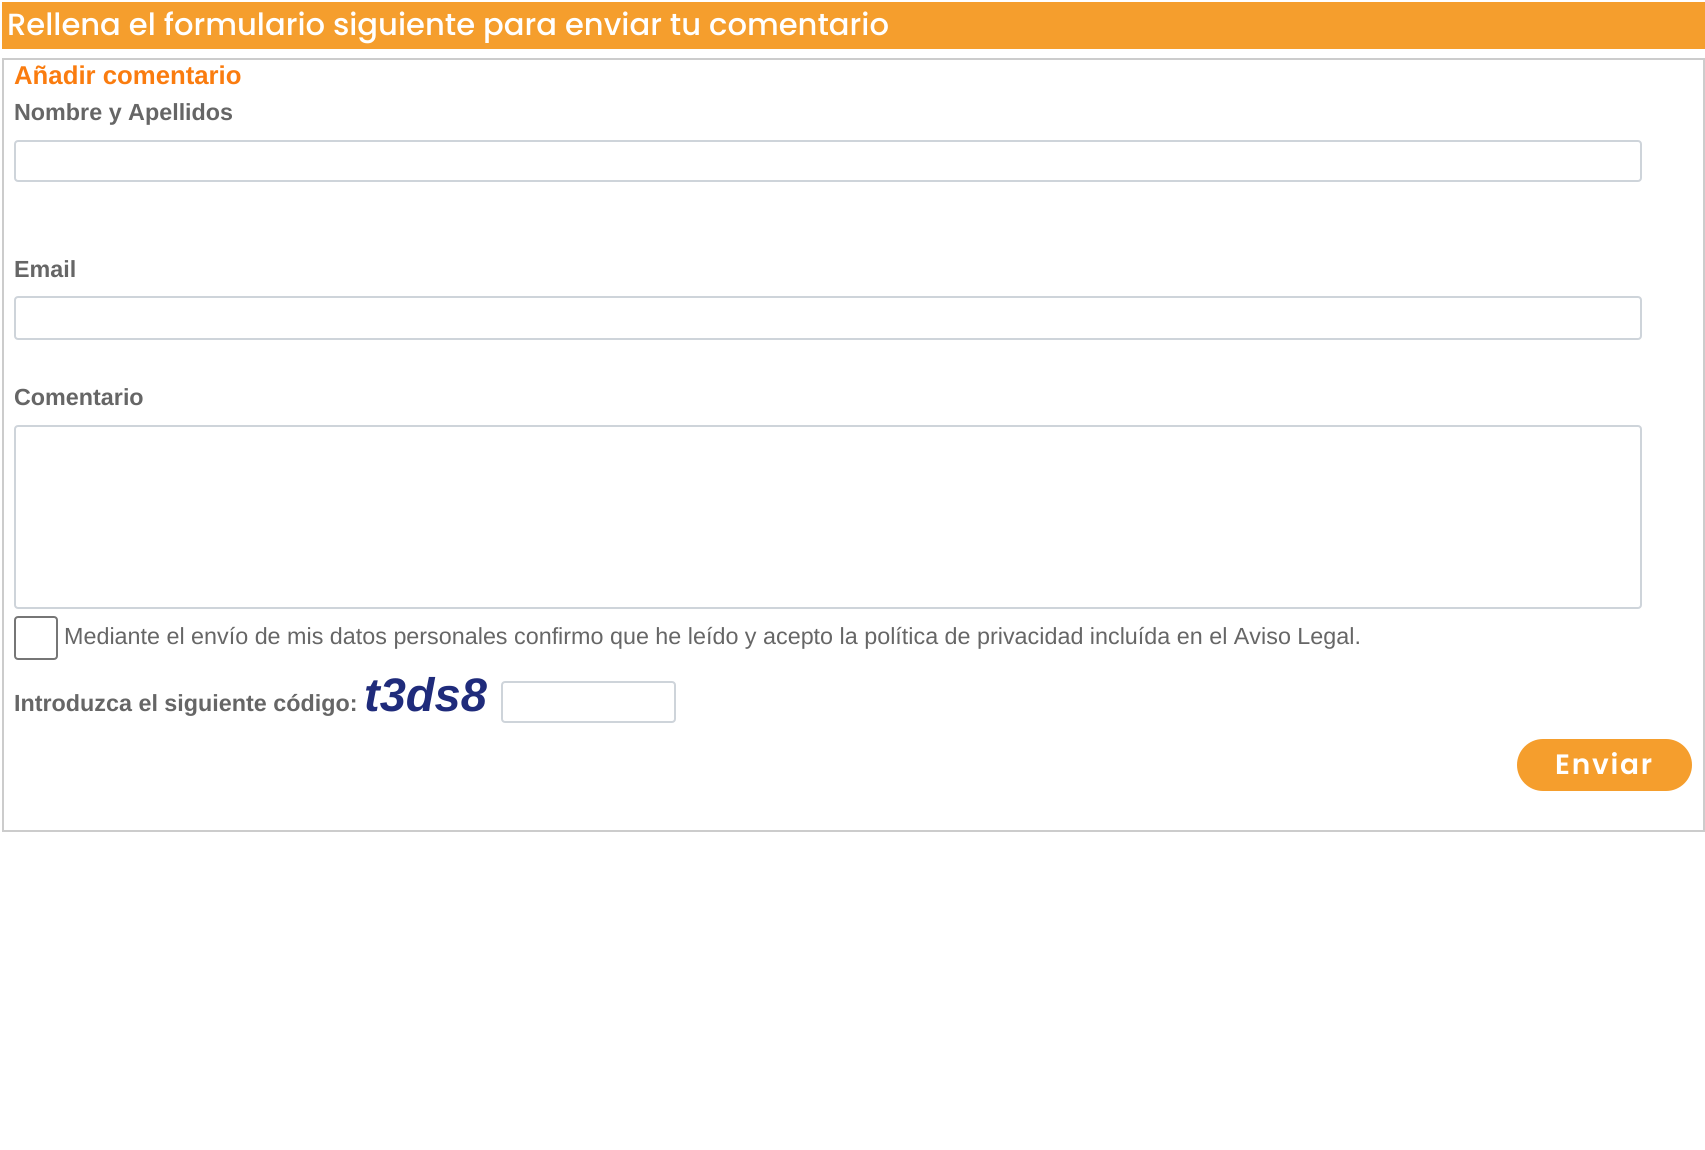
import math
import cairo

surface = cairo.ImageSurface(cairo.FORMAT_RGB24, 1705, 1150)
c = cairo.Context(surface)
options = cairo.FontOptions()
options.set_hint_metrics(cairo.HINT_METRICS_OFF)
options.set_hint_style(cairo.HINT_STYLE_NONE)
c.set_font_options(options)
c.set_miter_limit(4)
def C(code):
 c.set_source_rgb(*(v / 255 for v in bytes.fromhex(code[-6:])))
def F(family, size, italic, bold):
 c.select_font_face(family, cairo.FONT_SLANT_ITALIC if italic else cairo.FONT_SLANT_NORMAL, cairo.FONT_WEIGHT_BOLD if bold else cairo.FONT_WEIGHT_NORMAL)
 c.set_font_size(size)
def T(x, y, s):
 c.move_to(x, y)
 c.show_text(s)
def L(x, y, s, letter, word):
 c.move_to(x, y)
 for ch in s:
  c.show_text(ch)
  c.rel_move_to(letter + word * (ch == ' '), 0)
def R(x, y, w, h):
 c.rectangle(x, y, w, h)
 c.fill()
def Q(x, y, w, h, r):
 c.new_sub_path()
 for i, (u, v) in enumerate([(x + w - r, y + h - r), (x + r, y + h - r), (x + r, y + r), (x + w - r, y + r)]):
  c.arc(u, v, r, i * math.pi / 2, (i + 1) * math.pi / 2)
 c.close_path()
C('ffffff')
c.paint()
C('f59e2d')
R(2,2,1703,47)
F('Poppins Medium',30.6,0,0)
C('ffffff')
T(7,35,'Rellena el formulario siguiente para enviar tu comentario')
C('cccccc')
R(2,58,1703,2)
R(1703,58,2,773)
R(2,830,1703,2)
R(2,58,2,773)
F('Liberation Sans',25.75,0,1)
C('fa7c0f')
T(14,84,'Añadir comentario')
F('Liberation Sans',23.33,0,1)
C('666666')
T(14,120,'Nombre y Apellidos')
Q(15,141,1626,40,3)
C('ced4da')
c.stroke()
C('666666')
T(14,277,'Email')
Q(15,297,1626,42,3)
C('ced4da')
c.stroke()
C('666666')
T(14,405,'Comentario')
Q(15,426,1626,182,3)
C('ced4da')
c.stroke()
Q(15,617,42,42,3)
C('767676')
c.stroke()
F('Liberation Sans',23.33,0,0)
C('666666')
T(64,644,'Mediante el envío de mis datos personales confirmo que he leído y acepto la política de privacidad incluída en el Aviso Legal.')
F('Liberation Sans',23.33,0,1)
T(14,711,'Introduzca el siguiente código:')
F('Liberation Sans',47,1,1)
C('1f2b7b')
T(364,711,'t3ds8')
Q(502,682,173,40,3)
C('ced4da')
c.stroke()
C('f59e2d')
Q(1517,739,175,52,26)
c.fill()
F('Poppins SemiBold',28,0,0)
C('ffffff')
L(1555,774,'Enviar',1.75,0)
surface.write_to_png('o.png')
